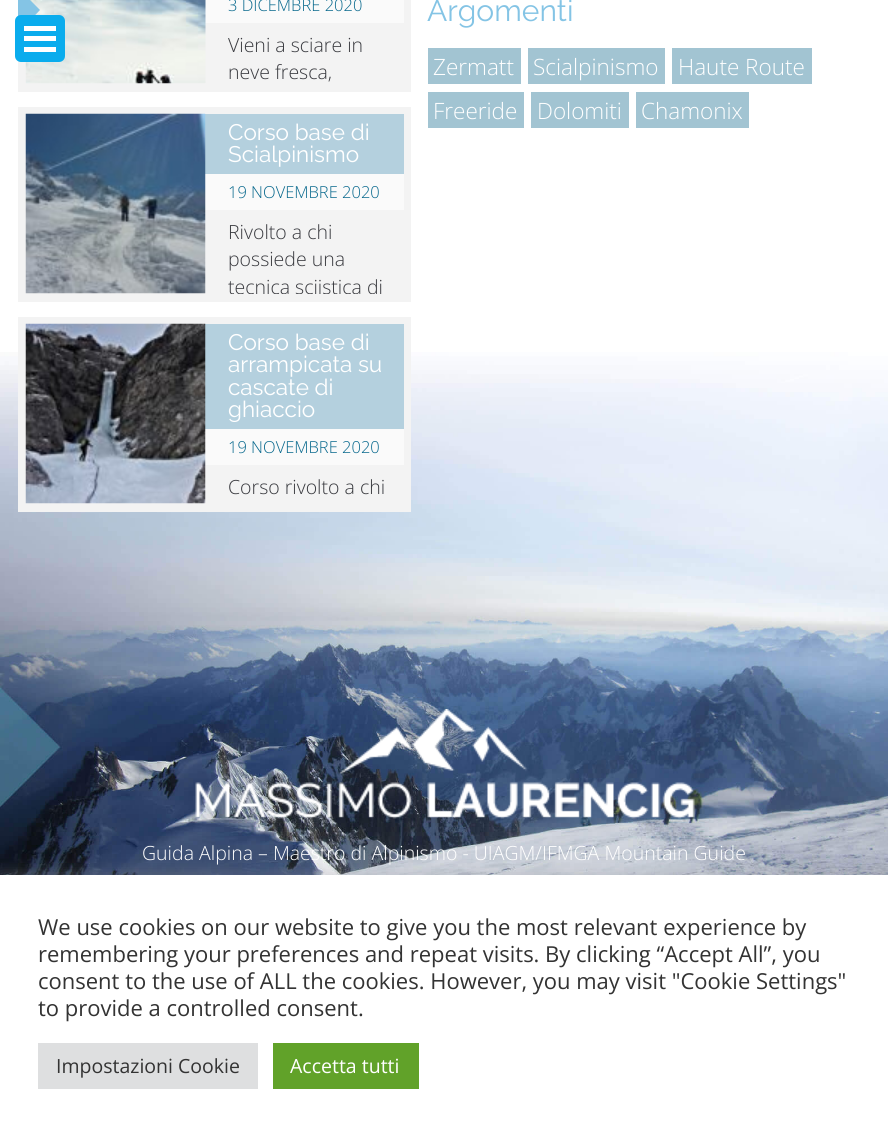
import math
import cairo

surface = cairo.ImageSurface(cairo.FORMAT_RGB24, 888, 1133)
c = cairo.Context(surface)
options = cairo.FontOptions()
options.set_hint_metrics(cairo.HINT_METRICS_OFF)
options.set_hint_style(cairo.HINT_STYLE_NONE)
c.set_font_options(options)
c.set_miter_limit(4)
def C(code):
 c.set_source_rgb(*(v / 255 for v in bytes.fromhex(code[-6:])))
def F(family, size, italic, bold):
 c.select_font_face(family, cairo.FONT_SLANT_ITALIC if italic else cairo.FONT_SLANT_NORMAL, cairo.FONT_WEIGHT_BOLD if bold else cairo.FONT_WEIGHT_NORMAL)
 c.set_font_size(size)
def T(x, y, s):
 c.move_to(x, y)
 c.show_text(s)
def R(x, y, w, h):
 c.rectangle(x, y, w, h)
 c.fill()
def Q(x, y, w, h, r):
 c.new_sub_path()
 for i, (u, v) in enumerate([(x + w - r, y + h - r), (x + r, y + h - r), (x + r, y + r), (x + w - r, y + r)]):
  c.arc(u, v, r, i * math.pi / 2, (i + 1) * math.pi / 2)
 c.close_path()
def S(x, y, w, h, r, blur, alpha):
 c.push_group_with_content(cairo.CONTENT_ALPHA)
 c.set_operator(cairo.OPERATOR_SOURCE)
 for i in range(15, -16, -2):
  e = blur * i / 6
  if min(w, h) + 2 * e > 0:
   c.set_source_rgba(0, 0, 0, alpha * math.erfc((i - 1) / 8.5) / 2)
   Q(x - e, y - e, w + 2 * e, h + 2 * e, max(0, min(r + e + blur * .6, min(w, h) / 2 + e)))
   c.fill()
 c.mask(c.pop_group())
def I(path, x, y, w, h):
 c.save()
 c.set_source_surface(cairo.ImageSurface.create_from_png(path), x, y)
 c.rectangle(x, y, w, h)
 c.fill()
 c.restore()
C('ffffff')
c.paint()
I('1.png',0,352,888,523)
C('f3f3f3')
R(18,0,393,92)
C('fafafa')
R(205,0,199,23)
I('2.png',25,0,181,84)
C('84c4e5')
c.new_path()
c.move_to(18,33)
c.line_to(18,-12)
c.line_to(40,10)
c.close_path()
c.fill()
C('0aaced')
Q(15,15,50,47,6)
c.fill()
C('ffffff')
R(24,26,32,5)
R(24,36,32,5)
R(24,47,32,5)
F('Open Sans Light',16.5,0,0)
C('06678c')
T(228,11,'3 DICEMBRE 2020')
F('Open Sans Light',19.5,0,0)
C('393a3f')
T(228,52,'Vieni a sciare in')
T(228,79,'neve fresca,')
C('f3f3f3')
R(18,107,393,195)
C('b4d0de')
R(205,114,199,60)
C('fafafa')
R(205,174,199,36)
I('3.png',25,113,181,181)
F('Raleway Thin',22.5,0,0)
C('ffffff')
T(228,140,'Corso base di')
T(228,162,'Scialpinismo')
F('Open Sans Light',16.5,0,0)
C('06678c')
T(228,198,'19 NOVEMBRE 2020')
F('Open Sans Light',19.5,0,0)
C('393a3f')
T(228,239,'Rivolto a chi')
T(228,266,'possiede una')
c.save()
c.rectangle(26,114,378,180)
c.clip()
T(228,294,'tecnica sciistica di')
c.restore()
C('f3f3f3')
R(18,317,393,195)
C('b4d0de')
R(205,324,199,105)
C('fafafa')
R(205,429,199,36)
I('4.png',25,323,181,181)
F('Raleway Thin',22.5,0,0)
C('ffffff')
T(228,350,'Corso base di')
T(228,372,'arrampicata su')
T(228,395,'cascate di')
T(228,417,'ghiaccio')
F('Open Sans Light',16.5,0,0)
C('06678c')
T(228,453,'19 NOVEMBRE 2020')
F('Open Sans Light',19.5,0,0)
C('393a3f')
T(228,494,'Corso rivolto a chi')
F('Raleway Thin',30,0,0)
C('84c4e5')
T(427,21,'Argomenti')
C('a2c4d2')
R(428,48,93,36)
F('Open Sans Light',22.5,0,0)
C('ffffff')
T(433,75,'Zermatt')
C('a2c4d2')
R(528,48,137,36)
C('ffffff')
T(533,75,'Scialpinismo')
C('a2c4d2')
R(672,48,140,36)
C('ffffff')
T(678,75,'Haute Route')
C('a2c4d2')
R(428,92,96,36)
C('ffffff')
T(433,119,'Freeride')
C('a2c4d2')
R(531,92,98,36)
C('ffffff')
T(537,119,'Dolomiti')
C('a2c4d2')
R(636,92,113,36)
C('ffffff')
T(641,119,'Chamonix')
I('5.png',195,709,500,110)
F('Open Sans Light',19.5,0,0)
T(142,860,'Guida Alpina – Maestro di Alpinismo - UIAGM/IFMGA Mountain Guide')
C('acabab')
S(0,873,888,260,0,7.5,.3)
C('ffffff')
R(0,875,888,258)
F('Open Sans',22,0,0)
C('333333')
T(38,935,'We use cookies on our website to give you the most relevant experience by')
T(38,962,'remembering your preferences and repeat visits. By clicking “Accept All”, you')
T(38,989,'consent to the use of ALL the cookies. However, you may visit "Cookie Settings"')
T(38,1016,'to provide a controlled consent.')
C('dedfe0')
R(38,1043,220,46)
F('Open Sans',19.5,0,0)
C('333333')
T(56,1073,'Impostazioni Cookie')
C('61a229')
R(273,1043,146,46)
C('ffffff')
T(290,1073,'Accetta tutti')
surface.write_to_png('o.png')
